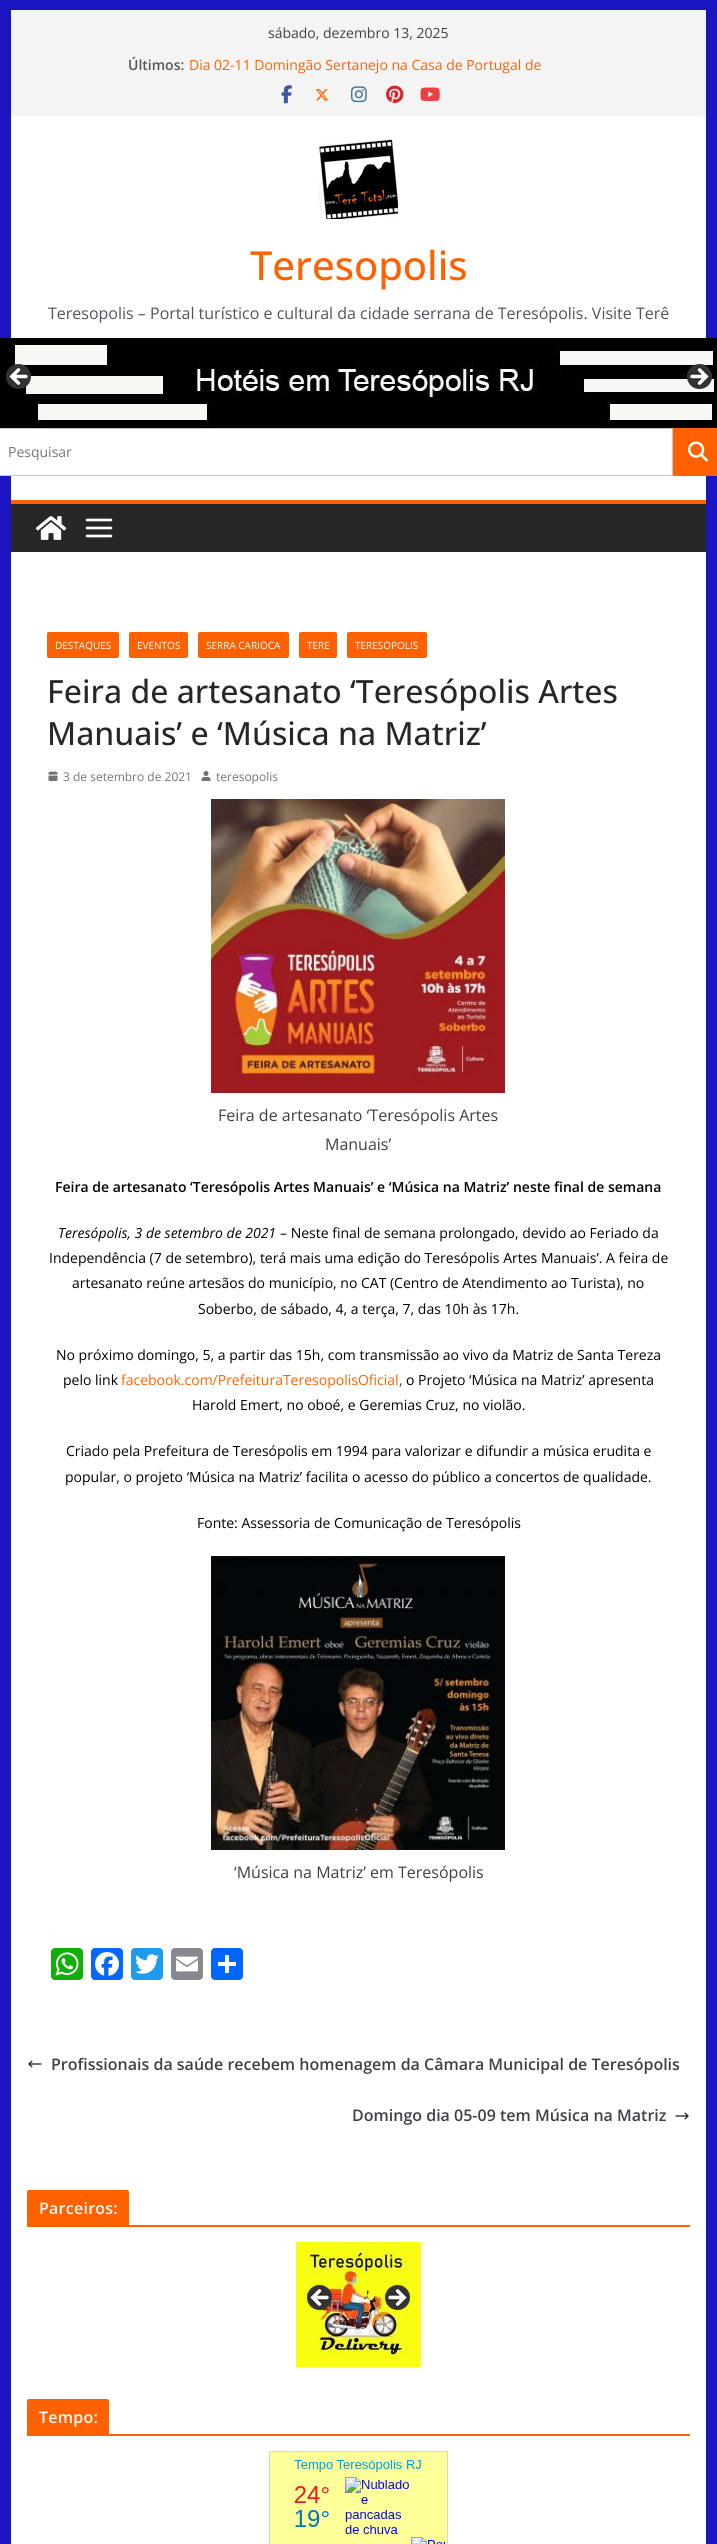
import math
import cairo

surface = cairo.ImageSurface(cairo.FORMAT_RGB24, 717, 2544)
c = cairo.Context(surface)
options = cairo.FontOptions()
options.set_hint_metrics(cairo.HINT_METRICS_OFF)
options.set_hint_style(cairo.HINT_STYLE_NONE)
c.set_font_options(options)
c.set_miter_limit(4)
def C(code):
 c.set_source_rgb(*(v / 255 for v in bytes.fromhex(code[-6:])))
def F(family, size, italic, bold):
 c.select_font_face(family, cairo.FONT_SLANT_ITALIC if italic else cairo.FONT_SLANT_NORMAL, cairo.FONT_WEIGHT_BOLD if bold else cairo.FONT_WEIGHT_NORMAL)
 c.set_font_size(size)
def T(x, y, s):
 c.move_to(x, y)
 c.show_text(s)
def L(x, y, s, letter, word):
 c.move_to(x, y)
 for ch in s:
  c.show_text(ch)
  c.rel_move_to(letter + word * (ch == ' '), 0)
def R(x, y, w, h):
 c.rectangle(x, y, w, h)
 c.fill()
def Q(x, y, w, h, r):
 c.new_sub_path()
 for i, (u, v) in enumerate([(x + w - r, y + h - r), (x + r, y + h - r), (x + r, y + r), (x + w - r, y + r)]):
  c.arc(u, v, r, i * math.pi / 2, (i + 1) * math.pi / 2)
 c.close_path()
def S(x, y, w, h, r, blur, alpha):
 c.push_group_with_content(cairo.CONTENT_ALPHA)
 c.set_operator(cairo.OPERATOR_SOURCE)
 for i in range(15, -16, -2):
  e = blur * i / 6
  if min(w, h) + 2 * e > 0:
   c.set_source_rgba(0, 0, 0, alpha * math.erfc((i - 1) / 8.5) / 2)
   Q(x - e, y - e, w + 2 * e, h + 2 * e, max(0, min(r + e + blur * .6, min(w, h) / 2 + e)))
   c.fill()
 c.mask(c.pop_group())
def I(path, x, y, w, h):
 c.save()
 c.set_source_surface(cairo.ImageSurface.create_from_png(path), x, y)
 c.rectangle(x, y, w, h)
 c.fill()
 c.restore()
C('1b16c2')
c.paint()
C('ffffff')
R(11,115,695,385)
C('000000')
S(11,10,695,105,0,1,.1)
C('f4f4f5')
R(11,10,695,105)
F('Open Sans',14,0,0)
C('3f3f46')
T(268,38,'sábado, dezembro 13, 2025')
F('Open Sans SemiBold',14,0,0)
C('555555')
T(128,70,'Últimos:')
F('Open Sans',14,0,0)
C('ff6100')
T(189,70,'Dia 02-11 Domingão Sertanejo na Casa de Portugal de')
I('1.png',281,85,11,19)
I('2.png',315,89,14,12)
I('3.png',351,86,16,17)
I('4.png',386,85,18,18)
I('5.png',420,87,20,14)
I('6.png',318,139,80,80)
F('Open Sans Medium',40,0,0)
T(250,280,'Teresopolis')
F('Open Sans',16,0,0)
C('52525b')
T(48,319,'Teresopolis – Portal turístico e cultural da cidade serrana de Teresópolis. Visite Terê')
I('7.png',0,338,717,90)
I('8.png',6,364,25,25)
I('9.png',687,364,25,25)
C('ffffff')
R(0,429,11,46)
c.rectangle(-.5,428.5,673,47)
C('c7c7c7')
c.set_line_width(1)
c.stroke()
F('Open Sans',14,0,0)
C('757575')
T(8,457,'Pesquisar')
C('ff6100')
R(673,428,44,48)
I('10.png',688,441,20,21)
C('27272a')
R(11,504,695,48)
C('ff6100')
R(11,500,695,4)
I('11.png',35,516,32,24)
I('12.png',85,518,28,20)
C('ffffff')
R(11,552,695,1992)
C('ff6100')
Q(47,632,72,26,2)
c.fill()
F('Open Sans',10,0,0)
C('ffffff')
T(55,649,'DESTAQUES')
C('ff6100')
Q(129,632,59,26,2)
c.fill()
C('ffffff')
T(137,649,'EVENTOS')
C('ff6100')
Q(198,632,91,26,2)
c.fill()
C('ffffff')
T(206,649,'SERRA CARIOCA')
C('ff6100')
Q(299,632,38,26,2)
c.fill()
C('ffffff')
T(307,649,'TERE')
C('ff6100')
Q(347,632,80,26,2)
c.fill()
C('ffffff')
T(355,649,'TERESOPOLIS')
F('Open Sans Medium',32,0,0)
C('27272a')
T(47,703,'Feira de artesanato ‘Teresópolis Artes')
T(47,745,'Manuais’ e ‘Música na Matriz’')
I('13.png',48,771,10,10)
F('Open Sans',12,0,0)
C('757575')
T(63,781,'3 de setembro de 2021')
I('14.png',201,771,10,10)
T(216,781,'teresopolis')
I('15.png',211,799,294,294)
F('Open Sans',16,0,0)
C('3f3f46')
T(218,1121,'Feira de artesanato ‘Teresópolis Artes')
T(325,1150,'Manuais’')
F('Open Sans SemiBold',14,0,0)
C('000000')
T(55,1192,'Feira de artesanato ‘Teresópolis Artes Manuais’ e ‘Música na Matriz’ neste final de semana')
F('Open Sans',14,1,0)
T(58,1238,'Teresópolis, 3 de setembro de 2021')
F('Open Sans',14,0,0)
T(280,1238,'– Neste final de semana prolongado, devido ao Feriado da')
T(49,1263,'Independência (7 de setembro), terá mais uma edição do Teresópolis Artes Manuais’. A feira de')
T(72,1288,'artesanato reúne artesãos do município, no CAT (Centro de Atendimento ao Turista), no')
T(198,1314,'Soberbo, de sábado, 4, a terça, 7, das 10h às 17h.')
T(56,1360,'No próximo domingo, 5, a partir das 15h, com transmissão ao vivo da Matriz de Santa Tereza')
T(63,1385,'pelo link')
C('ff6100')
T(121,1385,'facebook.com/PrefeituraTeresopolisOficial')
C('3f3f46')
T(399,1385,',')
C('000000')
T(406,1385,'o Projeto ‘Música na Matriz’ apresenta')
T(192,1410,'Harold Emert, no oboé, e Geremias Cruz, no violão.')
T(66,1456,'Criado pela Prefeitura de Teresópolis em 1994 para valorizar e difundir a música erudita e')
T(65,1482,'popular, o projeto ‘Música na Matriz’ facilita o acesso do público a concertos de qualidade.')
T(197,1528,'Fonte: Assessoria de Comunicação de Teresópolis')
I('16.png',211,1556,294,294)
F('Open Sans',16,0,0)
C('3f3f46')
T(234,1878,'‘Música na Matriz’ em Teresópolis')
C('12af0a')
Q(51,1948,32,32,4)
c.fill()
I('17.png',55,1952,24,24)
C('0866ff')
Q(91,1948,32,32,4)
c.fill()
I('18.png',95,1952,24,24)
C('1d9bf0')
Q(131,1948,32,32,4)
c.fill()
I('19.png',135,1954,24,20)
C('888990')
Q(171,1948,32,32,4)
c.fill()
I('20.png',176,1956,22,16)
C('0166ff')
Q(211,1948,32,32,4)
c.fill()
C('ffffff')
R(225,1955,4,18)
R(218,1962,18,4)
I('21.png',28,2060,14,8)
F('Open Sans SemiBold',16,0,0)
C('3f3f46')
T(51,2070,'Profissionais da saúde recebem homenagem da Câmara Municipal de Teresópolis')
T(352,2121,'Domingo dia 05-09 tem Música na Matriz')
I('22.png',675,2112,14,8)
C('ff6100')
R(27,2225,663,2)
c.new_path()
c.move_to(29,2190)
c.line_to(127,2190)
c.curve_to(128,2190,129,2191,129,2192)
c.line_to(129,2225)
c.line_to(27,2225)
c.line_to(27,2192)
c.curve_to(27,2191,28,2190,29,2190)
c.close_path()
c.fill()
C('ffffff')
L(39,2214,'Parceiros:',.25,0)
I('23.png',296,2242,125,125)
I('24.png',307,2285,25,25)
I('25.png',385,2285,25,25)
C('ff6100')
R(27,2434,663,2)
c.new_path()
c.move_to(29,2399)
c.line_to(107,2399)
c.curve_to(108,2399,109,2400,109,2401)
c.line_to(109,2434)
c.line_to(27,2434)
c.line_to(27,2401)
c.curve_to(27,2400,28,2399,29,2399)
c.close_path()
c.fill()
C('ffffff')
L(39,2423,'Tempo:',.25,0)
C('ffff99')
c.rectangle(269.5,2451.5,178,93)
c.fill_preserve()
C('d6d6d6')
c.stroke()
I('26.png',294,2460,151,84)
surface.write_to_png('o.png')
